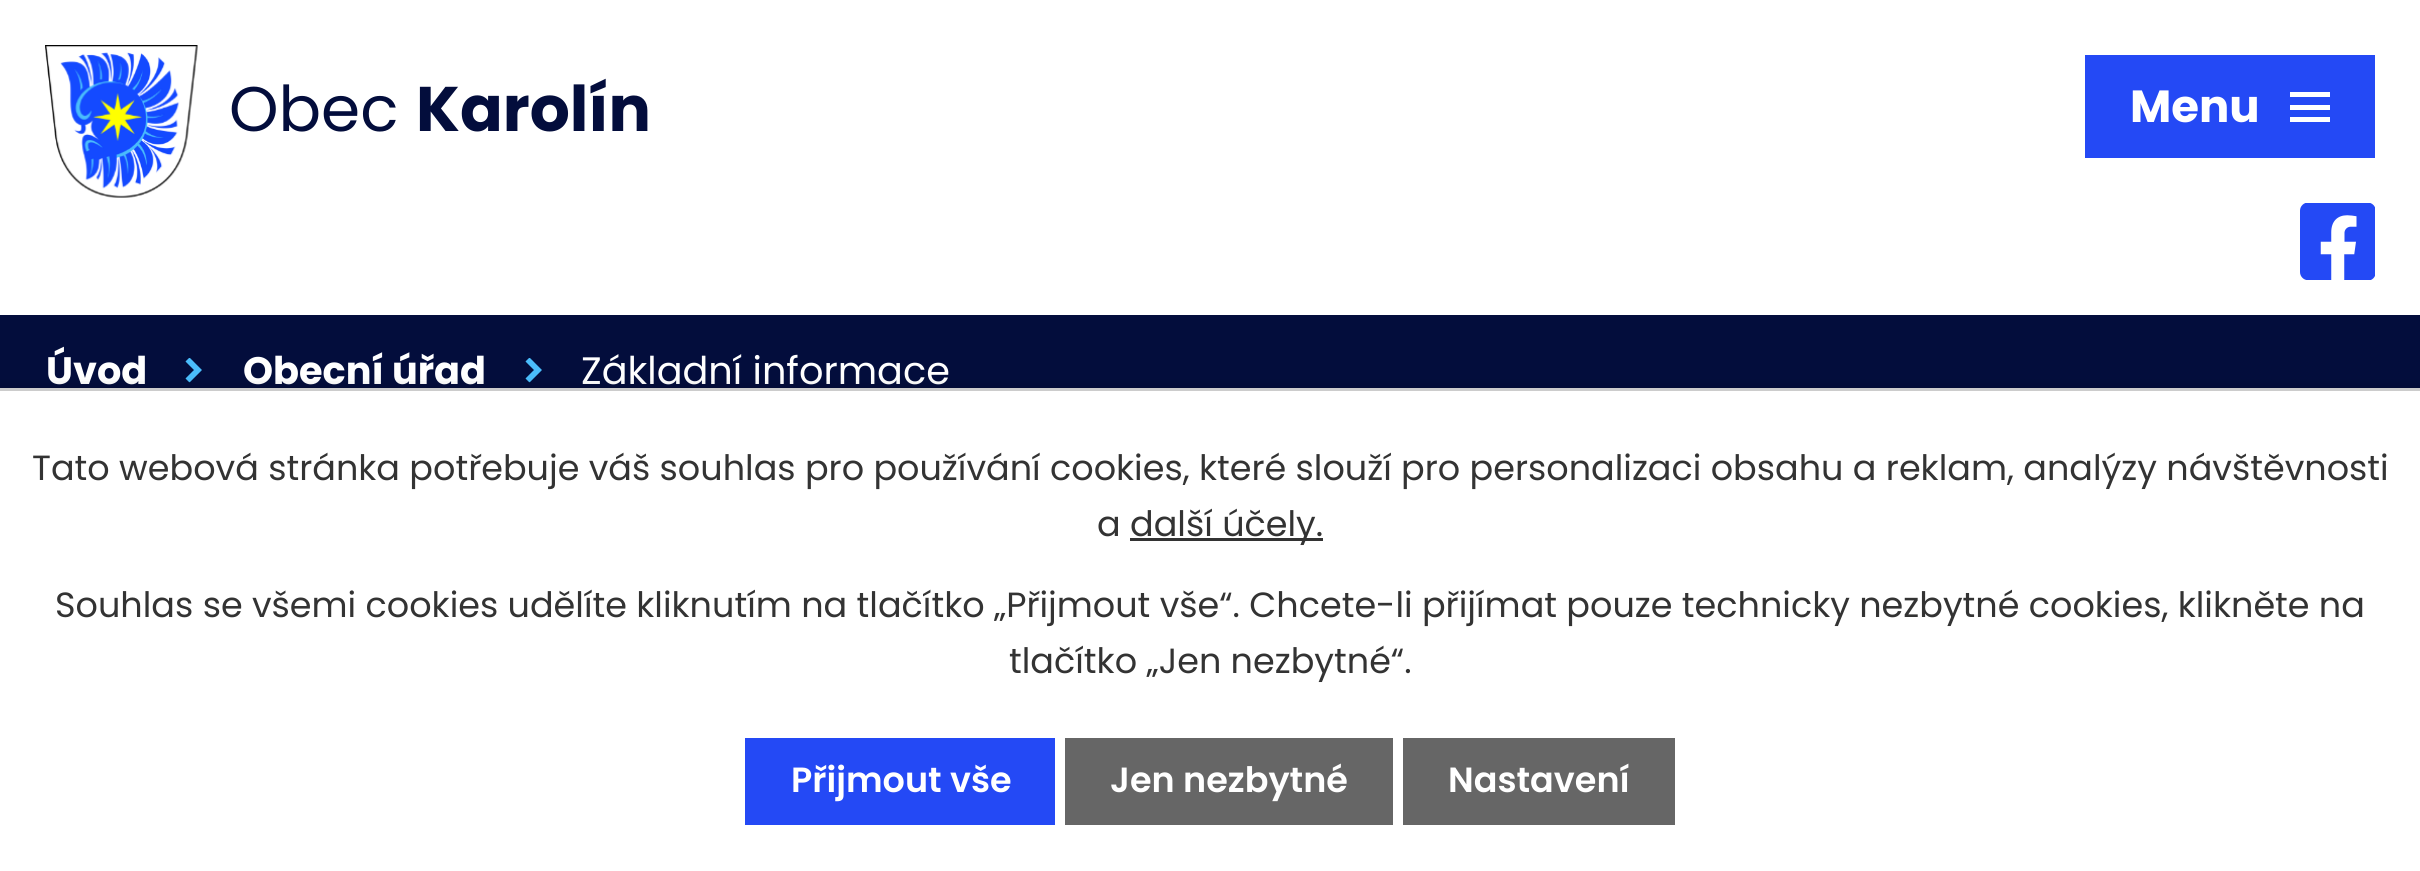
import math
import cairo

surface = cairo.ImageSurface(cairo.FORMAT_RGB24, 2420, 871)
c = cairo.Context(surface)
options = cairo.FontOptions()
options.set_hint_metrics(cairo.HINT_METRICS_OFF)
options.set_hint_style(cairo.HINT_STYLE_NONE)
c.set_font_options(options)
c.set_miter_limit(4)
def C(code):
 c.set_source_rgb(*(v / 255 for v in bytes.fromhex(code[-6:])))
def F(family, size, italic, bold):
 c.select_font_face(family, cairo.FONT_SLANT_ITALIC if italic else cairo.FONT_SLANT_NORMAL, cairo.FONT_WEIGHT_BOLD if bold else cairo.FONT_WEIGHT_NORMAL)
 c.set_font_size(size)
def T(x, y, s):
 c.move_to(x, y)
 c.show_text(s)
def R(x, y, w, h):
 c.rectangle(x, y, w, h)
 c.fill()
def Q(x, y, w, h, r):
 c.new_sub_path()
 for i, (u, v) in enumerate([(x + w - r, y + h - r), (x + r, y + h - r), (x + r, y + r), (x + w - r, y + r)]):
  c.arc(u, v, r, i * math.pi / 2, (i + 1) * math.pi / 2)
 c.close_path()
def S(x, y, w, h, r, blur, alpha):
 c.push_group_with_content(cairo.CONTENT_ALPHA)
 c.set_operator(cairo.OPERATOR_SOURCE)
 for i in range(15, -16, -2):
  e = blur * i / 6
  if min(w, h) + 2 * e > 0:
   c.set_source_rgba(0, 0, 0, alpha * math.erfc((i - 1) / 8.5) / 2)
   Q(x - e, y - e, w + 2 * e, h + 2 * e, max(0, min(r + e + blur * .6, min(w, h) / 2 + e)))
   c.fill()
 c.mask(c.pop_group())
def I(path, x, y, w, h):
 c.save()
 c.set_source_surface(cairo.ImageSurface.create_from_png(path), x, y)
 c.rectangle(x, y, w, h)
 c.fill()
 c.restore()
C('ffffff')
c.paint()
I('1.png',45,45,153,153)
F('Poppins',63,0,0)
C('030d3c')
T(229,131,'Obec')
F('Poppins',63,0,1)
T(416,131,'Karolín')
I('2.png',2300,203,75,77)
C('2449f5')
R(2085,55,290,103)
F('Poppins',45,0,1)
C('ffffff')
T(2130,122,'Menu')
c.new_path()
c.move_to(2290,122)
c.line_to(2290,117)
c.line_to(2330,117)
c.line_to(2330,122)
c.close_path()
c.move_to(2290,92)
c.line_to(2330,92)
c.line_to(2330,97)
c.line_to(2290,97)
c.close_path()
c.move_to(2290,110)
c.line_to(2290,105)
c.line_to(2330,105)
c.line_to(2330,110)
c.close_path()
c.fill()
C('030d3c')
R(0,315,2420,73)
F('Poppins',38.25,0,1)
C('ffffff')
T(46,384,'Úvod')
I('3.png',185,358,17,25)
T(243,384,'Obecní úřad')
I('3.png',525,358,17,25)
F('Poppins',38.25,0,0)
T(581,384,'Základní informace')
C('000000')
S(0,388,2420,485,0,6,.2)
C('ffffff')
R(0,391,2420,480)
C('cccccc')
R(0,388,2420,3)
F('Poppins',35,0,0)
C('333333')
T(32,480,'Tato webová stránka potřebuje váš souhlas pro používání cookies, které slouží pro personalizaci obsahu a reklam, analýzy návštěvnosti')
T(1097,536,'a')
R(1130,538,193,3)
T(1130,536,'další účely.')
T(55,617,'Souhlas se všemi cookies udělíte kliknutím na tlačítko „Přijmout vše“. Chcete-li přijímat pouze technicky nezbytné cookies, klikněte na')
T(1009,673,'tlačítko „Jen nezbytné“.')
C('2449f5')
R(745,738,310,87)
F('Poppins SemiBold',35,0,0)
C('ffffff')
T(791,792,'Přijmout vše')
C('666666')
R(1065,738,328,87)
C('ffffff')
T(1110,792,'Jen nezbytné')
C('666666')
R(1403,738,272,87)
C('ffffff')
T(1448,792,'Nastavení')
surface.write_to_png('o.png')
